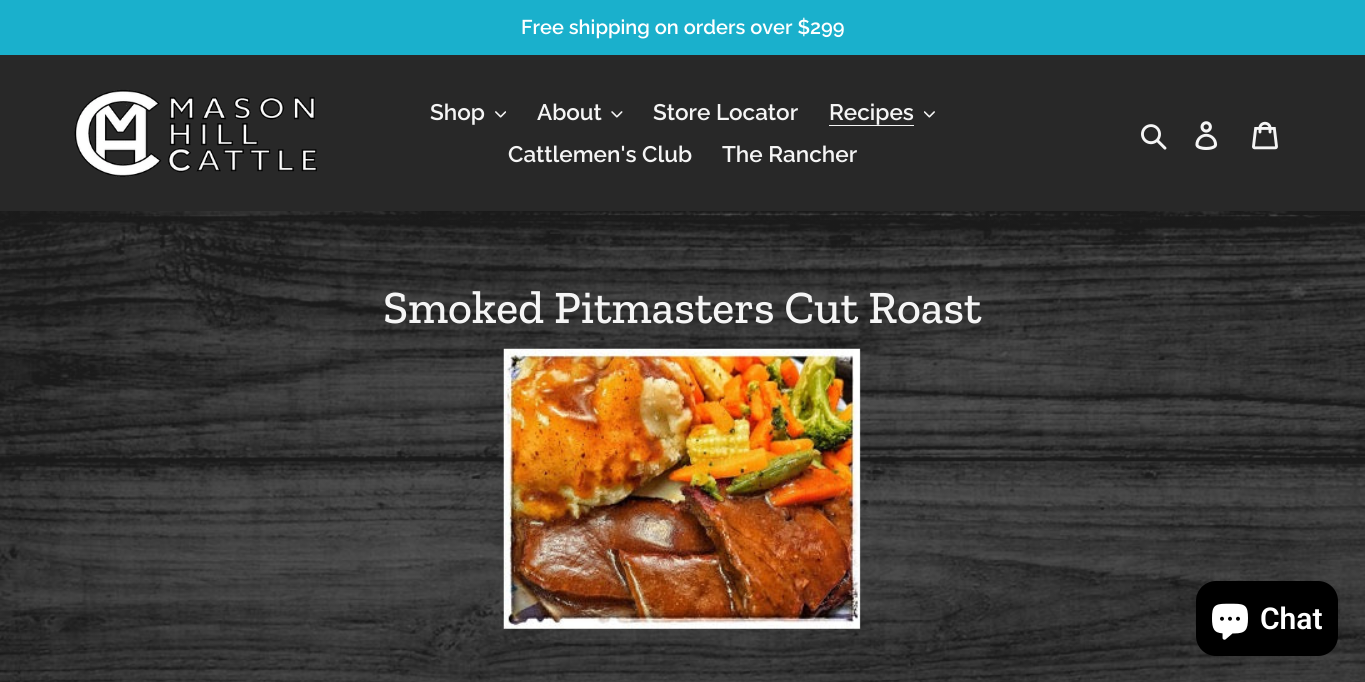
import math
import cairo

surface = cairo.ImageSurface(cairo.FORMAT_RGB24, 1365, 682)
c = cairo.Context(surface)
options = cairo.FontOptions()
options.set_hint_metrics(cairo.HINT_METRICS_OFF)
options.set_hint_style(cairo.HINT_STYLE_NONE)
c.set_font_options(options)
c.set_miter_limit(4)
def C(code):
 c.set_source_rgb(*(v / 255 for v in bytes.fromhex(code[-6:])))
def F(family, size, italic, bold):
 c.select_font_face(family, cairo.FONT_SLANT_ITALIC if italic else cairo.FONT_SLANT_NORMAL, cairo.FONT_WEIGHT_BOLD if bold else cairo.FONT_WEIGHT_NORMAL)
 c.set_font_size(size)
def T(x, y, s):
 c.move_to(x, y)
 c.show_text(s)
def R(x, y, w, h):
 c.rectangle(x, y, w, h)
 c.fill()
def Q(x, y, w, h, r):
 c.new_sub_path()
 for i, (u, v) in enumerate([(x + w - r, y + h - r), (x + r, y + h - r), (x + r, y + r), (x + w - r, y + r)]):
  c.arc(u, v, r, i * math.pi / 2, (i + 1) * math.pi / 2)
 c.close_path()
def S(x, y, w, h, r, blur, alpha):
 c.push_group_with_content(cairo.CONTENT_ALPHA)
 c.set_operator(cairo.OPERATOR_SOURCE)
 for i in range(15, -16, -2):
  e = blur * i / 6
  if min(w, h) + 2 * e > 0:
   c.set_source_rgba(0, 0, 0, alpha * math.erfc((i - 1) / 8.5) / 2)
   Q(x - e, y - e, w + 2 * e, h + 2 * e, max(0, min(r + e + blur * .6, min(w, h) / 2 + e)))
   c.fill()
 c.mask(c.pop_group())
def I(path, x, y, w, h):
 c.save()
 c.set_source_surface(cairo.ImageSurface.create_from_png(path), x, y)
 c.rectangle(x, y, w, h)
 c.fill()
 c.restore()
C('ffffff')
c.paint()
I('1.png',0,211,1365,471)
C('1ab0cc')
R(0,0,1365,55)
F('Raleway SemiBold',20,0,0)
C('ffffff')
T(521,34,'Free shipping on orders over $299')
C('282828')
R(0,55,1365,156)
I('2.png',74,89,243,88)
F('Raleway SemiBold',22.5,0,0)
C('f5f5f5')
T(430,120,'Shop')
I('3.png',495,111,11,7)
T(537,120,'About')
I('4.png',611,111,12,7)
T(653,120,'Store Locator')
T(829,120,'Recipes')
R(829,125,85,1)
I('5.png',924,111,11,7)
T(508,162,'Cattlemen\'s Club')
T(722,162,'The Rancher')
I('6.png',1141,124,26,26)
I('7.png',1195,121,23,29)
I('8.png',1252,121,26,29)
F('Zilla Slab Medium',46.25,0,0)
T(383,323,'Smoked Pitmasters Cut Roast')
I('9.png',503,348,358,281)
C('000000')
S(1196,581,142,75,20,3,.15)
C('000000')
Q(1196,581,142,75,20)
c.fill()
I('10.png',1212,603,36,37)
F('Roboto SemiBold',30,0,0)
C('ffffff')
T(1260,629,'Chat')
surface.write_to_png('o.png')
